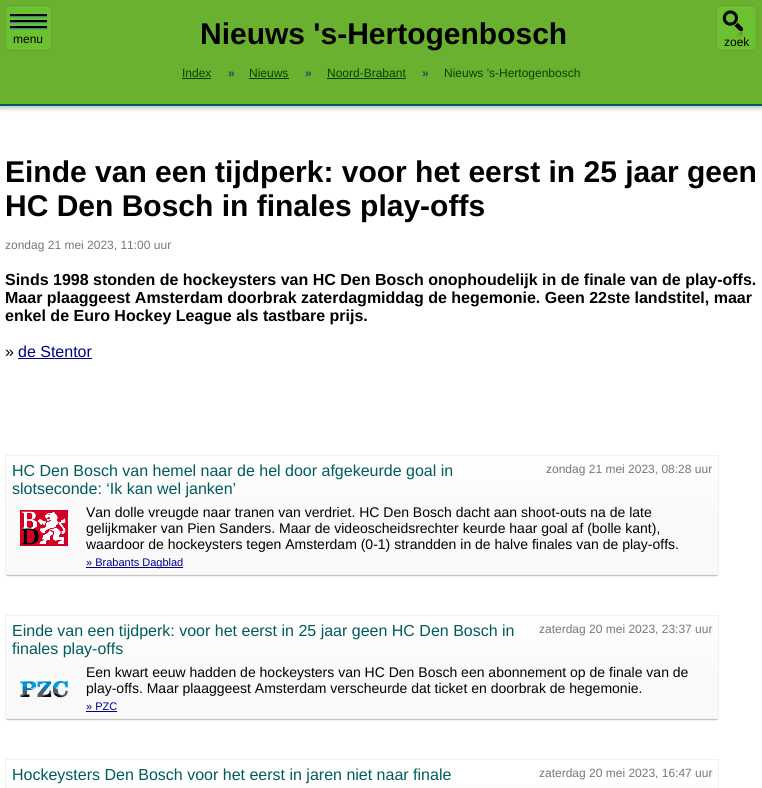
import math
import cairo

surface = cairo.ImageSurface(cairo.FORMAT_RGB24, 762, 788)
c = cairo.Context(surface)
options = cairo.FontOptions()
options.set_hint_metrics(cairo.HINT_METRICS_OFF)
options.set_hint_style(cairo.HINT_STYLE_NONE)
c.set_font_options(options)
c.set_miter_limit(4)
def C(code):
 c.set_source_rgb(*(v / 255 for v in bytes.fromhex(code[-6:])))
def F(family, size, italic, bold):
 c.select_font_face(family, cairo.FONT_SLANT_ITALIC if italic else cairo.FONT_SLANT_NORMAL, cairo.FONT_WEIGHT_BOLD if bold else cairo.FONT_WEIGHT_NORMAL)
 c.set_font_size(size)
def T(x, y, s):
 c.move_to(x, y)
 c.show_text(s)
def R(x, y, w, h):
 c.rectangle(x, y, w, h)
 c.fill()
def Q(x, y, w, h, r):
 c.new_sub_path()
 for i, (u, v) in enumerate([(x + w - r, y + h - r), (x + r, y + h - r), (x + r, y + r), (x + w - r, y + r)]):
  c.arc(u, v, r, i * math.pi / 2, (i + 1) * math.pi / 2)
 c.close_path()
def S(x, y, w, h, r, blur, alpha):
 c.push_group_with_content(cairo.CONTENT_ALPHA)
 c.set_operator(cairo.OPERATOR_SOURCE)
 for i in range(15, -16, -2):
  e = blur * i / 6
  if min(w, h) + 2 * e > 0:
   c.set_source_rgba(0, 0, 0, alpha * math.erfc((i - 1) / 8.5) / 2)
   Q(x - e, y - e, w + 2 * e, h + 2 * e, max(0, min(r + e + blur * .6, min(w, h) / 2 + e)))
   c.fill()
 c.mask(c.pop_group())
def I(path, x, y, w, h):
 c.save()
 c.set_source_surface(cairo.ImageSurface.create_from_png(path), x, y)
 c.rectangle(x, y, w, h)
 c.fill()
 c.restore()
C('ffffff')
c.paint()
C('bbbbbb')
S(0,2,762,106,0,2.5,1)
C('6bb130')
R(0,0,762,104)
C('005b5b')
R(0,104,762,2)
C('6bc130')
Q(5.5,5.5,46,45,4.5)
c.fill_preserve()
C('6ba130')
c.set_line_width(1)
c.stroke()
C('338888')
S(10,15,37,2,0,.5,1)
C('000000')
R(10,14,37,2)
C('338888')
S(10,21,37,2,0,.5,1)
C('000000')
R(10,20,37,2)
C('338888')
S(10,27,37,2,0,.5,1)
C('000000')
R(10,26,37,2)
F('Liberation Sans',12,0,0)
T(13,43,'menu')
F('Liberation Sans',30,0,1)
T(200,44,'Nieuws \'s-Hertogenbosch')
F('Liberation Sans',12,0,0)
C('004400')
T(182,77,'Index')
R(182,78,29,1)
F('Liberation Sans',12,0,1)
C('005b5b')
T(228,77,'»')
F('Liberation Sans',12,0,0)
C('004400')
T(249,77,'Nieuws')
R(249,78,40,1)
F('Liberation Sans',12,0,1)
C('005b5b')
T(305,77,'»')
F('Liberation Sans',12,0,0)
C('004400')
T(327,77,'Noord-Brabant')
R(327,78,79,1)
F('Liberation Sans',12,0,1)
C('005b5b')
T(422,77,'»')
F('Liberation Sans',12,0,0)
C('004400')
T(444,77,'Nieuws \'s-Hertogenbosch')
C('6bc130')
Q(716,5,41,46,5)
c.fill()
I('1.png',722,10,22,28)
Q(716.5,5.5,40,45,4.5)
C('6ba130')
c.stroke()
C('000000')
T(724,46,'zoek')
F('Liberation Sans',30,0,1)
T(5,182,'Einde van een tijdperk: voor het eerst in 25 jaar geen')
T(5,216,'HC Den Bosch in finales play-offs')
F('Liberation Sans',12,0,0)
C('777777')
T(5,249,'zondag 21 mei 2023, 11:00 uur')
F('Liberation Sans',16,0,1)
C('000000')
T(5,285,'Sinds 1998 stonden de hockeysters van HC Den Bosch onophoudelijk in de finale van de play-offs.')
T(5,303,'Maar plaaggeest Amsterdam doorbrak zaterdagmiddag de hegemonie. Geen 22ste landstitel, maar')
T(5,321,'enkel de Euro Hockey League als tastbare prijs.')
F('Liberation Sans',16,0,0)
T(5,357,'»')
C('000088')
T(18,357,'de Stentor')
R(18,358,74,1)
C('555555')
S(7,459,710,116,0,1,1)
gradient = cairo.LinearGradient(362,456,362,574)
gradient.add_color_stop_rgba(0,1,1,1,1)
gradient.add_color_stop_rgba(.51,0.976,0.976,0.976,1)
c.set_source(gradient)
R(6,457,712,117)
c.rectangle(5.5,455.5,713,119)
C('f1f1f1')
c.stroke()
C('005b5b')
T(12,476,'HC Den Bosch van hemel naar de hel door afgekeurde goal in')
T(12,494,'slotseconde: ‘Ik kan wel janken’')
F('Liberation Sans',12,0,0)
C('777777')
T(546,473,'zondag 21 mei 2023, 08:28 uur')
I('2.png',20,510,48,36)
F('Liberation Sans',14,0,0)
C('000000')
T(86,517,'Van dolle vreugde naar tranen van verdriet. HC Den Bosch dacht aan shoot-outs na de late')
T(86,533,'gelijkmaker van Pien Sanders. Maar de videoscheidsrechter keurde haar goal af (bolle kant),')
T(86,549,'waardoor de hockeysters tegen Amsterdam (0-1) strandden in de halve finales van de play-offs.')
C('000088')
R(86,567,97,1)
F('Liberation Sans',11,0,0)
T(86,566,'» Brabants Dagblad')
C('555555')
S(7,619,710,100,0,1,1)
gradient = cairo.LinearGradient(362,616,362,718)
gradient.add_color_stop_rgba(0,1,1,1,1)
gradient.add_color_stop_rgba(.59,0.976,0.976,0.976,1)
c.set_source(gradient)
R(6,617,712,101)
c.rectangle(5.5,615.5,713,103)
C('f1f1f1')
c.stroke()
F('Liberation Sans',16,0,0)
C('005b5b')
T(12,636,'Einde van een tijdperk: voor het eerst in 25 jaar geen HC Den Bosch in')
T(12,654,'finales play-offs')
F('Liberation Sans',12,0,0)
C('777777')
T(539,633,'zaterdag 20 mei 2023, 23:37 uur')
F('Liberation Sans',14,0,0)
C('000000')
T(86,677,'Een kwart eeuw hadden de hockeysters van HC Den Bosch een abonnement op de finale van de')
I('3.png',20,680,48,18)
T(86,693,'play-offs. Maar plaaggeest Amsterdam verscheurde dat ticket en doorbrak de hegemonie.')
F('Liberation Sans',11,0,0)
C('000088')
T(86,710,'» PZC')
R(86,711,31,1)
gradient = cairo.LinearGradient(362,760,362,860)
gradient.add_color_stop_rgba(0,1,1,1,1)
gradient.add_color_stop_rgba(.6,0.976,0.976,0.976,1)
c.set_source(gradient)
R(6,785,712,3)
c.rectangle(5.5,759.5,713,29)
C('f1f1f1')
c.stroke()
F('Liberation Sans',16,0,0)
C('005b5b')
T(12,780,'Hockeysters Den Bosch voor het eerst in jaren niet naar finale')
F('Liberation Sans',12,0,0)
C('777777')
T(539,777,'zaterdag 20 mei 2023, 16:47 uur')
surface.write_to_png('o.png')
